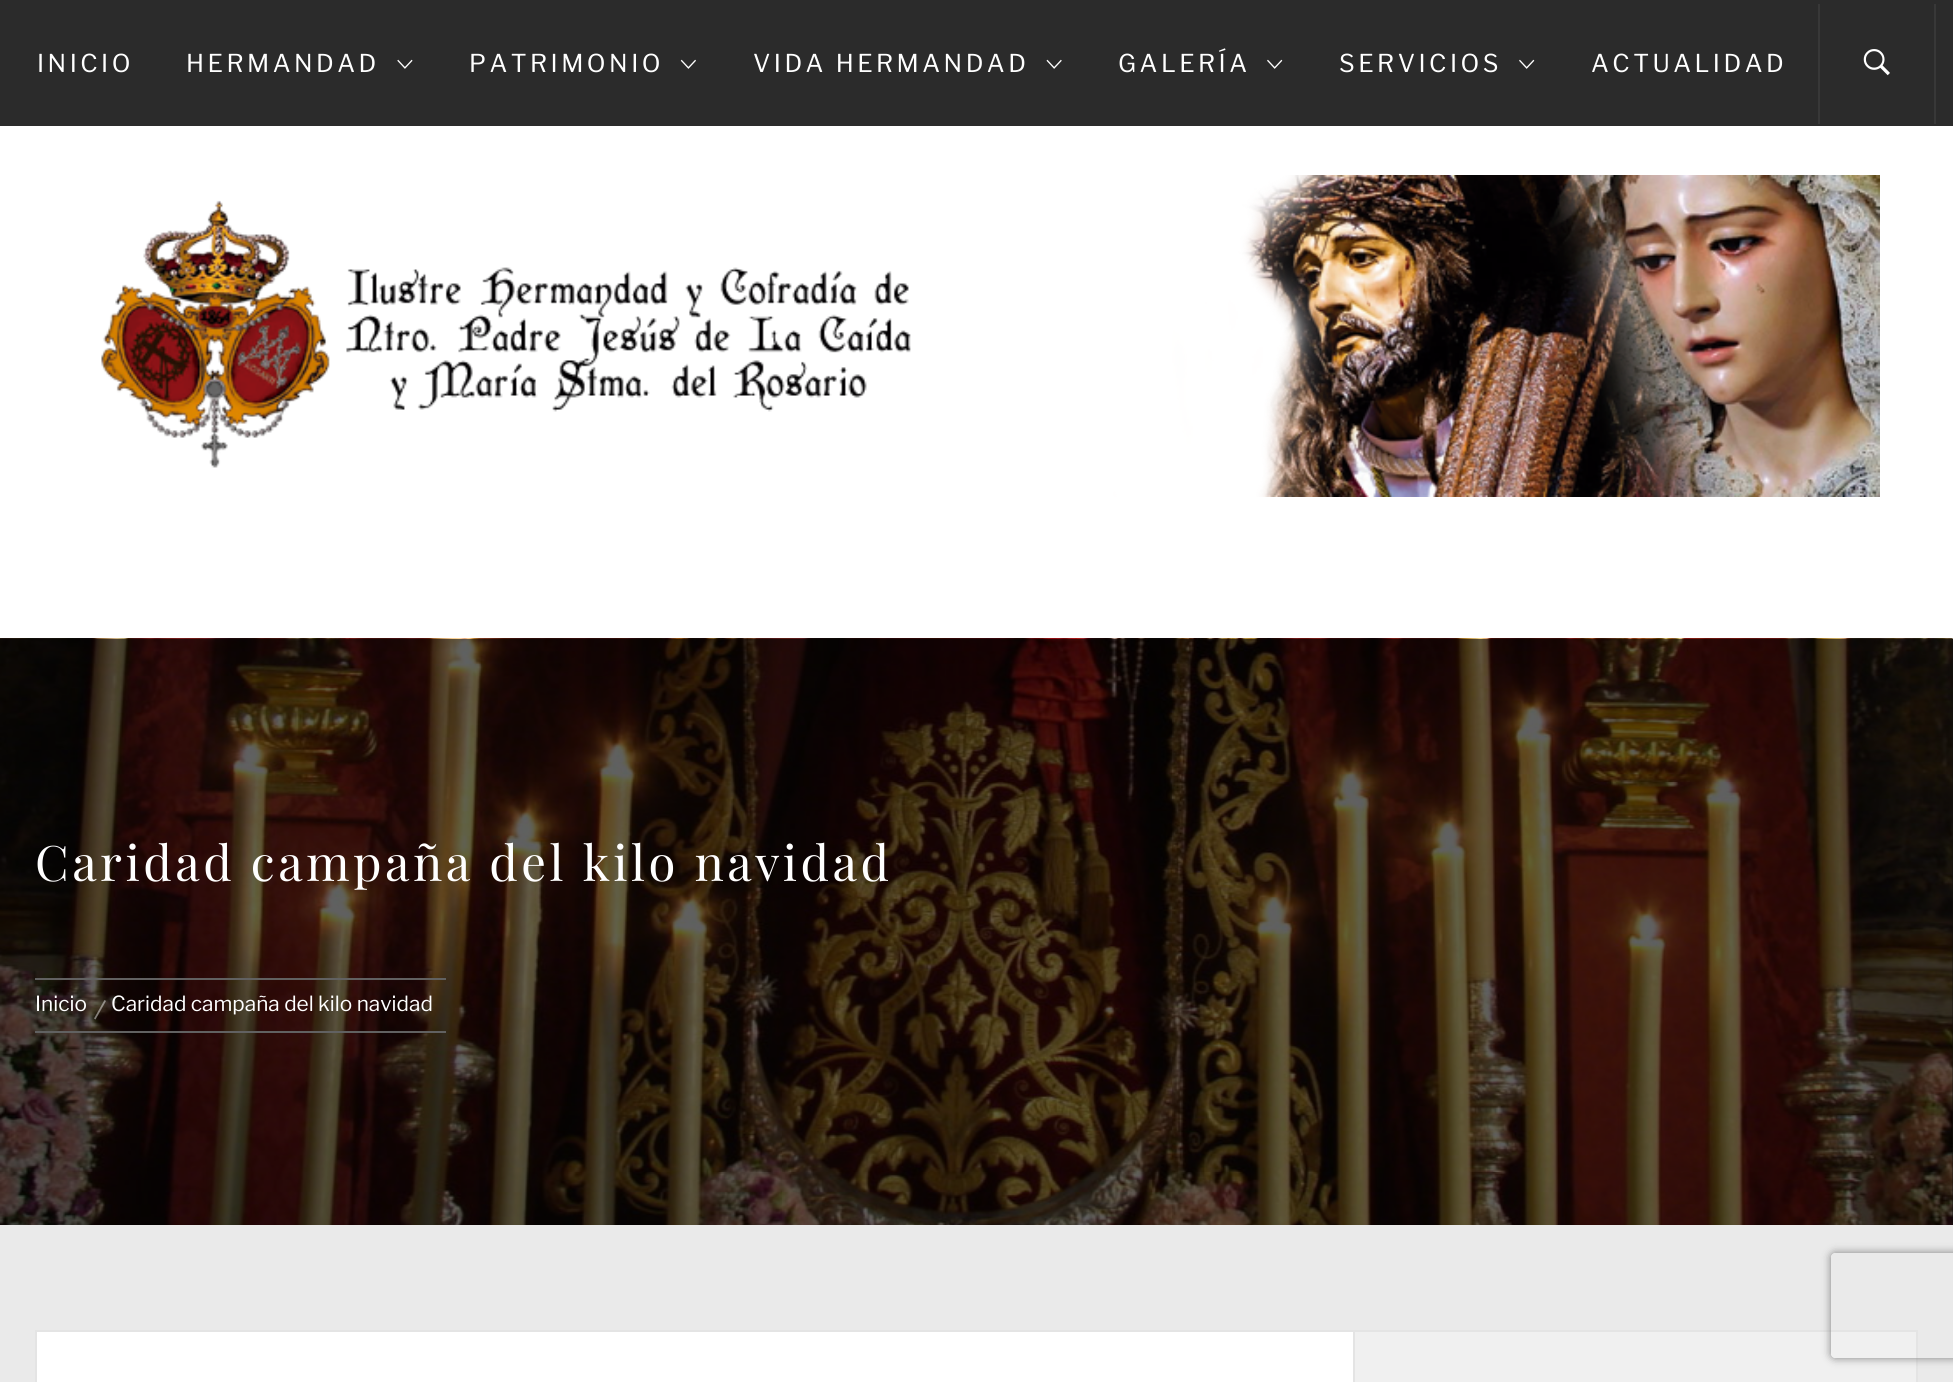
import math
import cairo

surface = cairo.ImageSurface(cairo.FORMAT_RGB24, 1953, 1382)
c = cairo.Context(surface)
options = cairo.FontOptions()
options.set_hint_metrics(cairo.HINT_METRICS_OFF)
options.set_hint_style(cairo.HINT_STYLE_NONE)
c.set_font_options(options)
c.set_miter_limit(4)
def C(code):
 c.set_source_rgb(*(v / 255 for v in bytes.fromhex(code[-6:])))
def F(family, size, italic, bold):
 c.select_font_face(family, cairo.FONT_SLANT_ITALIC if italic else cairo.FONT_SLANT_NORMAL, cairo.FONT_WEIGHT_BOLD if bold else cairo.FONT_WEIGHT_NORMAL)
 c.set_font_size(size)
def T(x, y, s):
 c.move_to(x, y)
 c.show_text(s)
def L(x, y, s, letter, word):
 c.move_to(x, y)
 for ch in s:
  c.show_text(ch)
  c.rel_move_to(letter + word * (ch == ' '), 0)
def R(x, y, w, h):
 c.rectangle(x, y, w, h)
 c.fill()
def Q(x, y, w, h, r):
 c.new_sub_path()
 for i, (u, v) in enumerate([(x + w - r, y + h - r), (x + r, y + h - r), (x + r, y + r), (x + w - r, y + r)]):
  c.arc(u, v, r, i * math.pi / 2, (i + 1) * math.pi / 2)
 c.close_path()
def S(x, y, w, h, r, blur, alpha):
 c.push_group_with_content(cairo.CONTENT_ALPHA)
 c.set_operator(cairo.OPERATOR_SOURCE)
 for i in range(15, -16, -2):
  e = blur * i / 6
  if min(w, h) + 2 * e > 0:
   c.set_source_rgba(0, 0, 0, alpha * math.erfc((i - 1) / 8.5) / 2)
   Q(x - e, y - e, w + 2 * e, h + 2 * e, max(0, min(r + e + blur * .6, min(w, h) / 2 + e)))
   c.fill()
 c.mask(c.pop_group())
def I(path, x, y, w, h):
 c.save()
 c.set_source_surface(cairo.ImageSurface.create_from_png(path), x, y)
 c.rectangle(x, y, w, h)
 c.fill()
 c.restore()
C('ffffff')
c.paint()
C('2b2b2b')
R(0,0,1953,126)
F('Libre Franklin',24.5,0,0)
C('ffffff')
L(37,72,'INICIO',3.5,0)
L(186,72,'HERMANDAD',3.5,0)
I('1.png',397,59,16,10)
L(469,72,'PATRIMONIO',3.5,0)
I('2.png',680,59,16,10)
L(753,72,'VIDA HERMANDAD',3.5,0)
I('3.png',1046,59,16,10)
L(1118,72,'GALERÍA',3.5,0)
I('4.png',1267,59,16,10)
L(1339,72,'SERVICIOS',3.5,0)
I('4.png',1519,59,16,10)
L(1591,72,'ACTUALIDAD',3.5,0)
C('383838')
R(1934,4,2,120)
R(1818,4,2,120)
I('5.png',1863,49,27,27)
I('6.png',101,175,1779,322)
C('101010')
R(1952,639,1,586)
I('7.png',0,638,1953,587)
F('Playfair Display',49,0,0)
C('ffffff')
L(35,881,'Caridad campaña del kilo navidad',3.5,0)
C('616161')
R(35,978,411,2)
R(35,1031,411,2)
F('Libre Franklin',20.8,0,0)
C('ffffff')
T(35,1011,'Inicio')
c.set_source_rgba(1,1,1,0.45)
c.new_path()
c.move_to(104.5,1000)
c.line_to(106,1001)
c.line_to(95.5,1019.5)
c.line_to(94,1018.5)
c.close_path()
c.fill()
C('ffffff')
T(111,1011,'Caridad campaña del kilo navidad')
C('eaeaea')
R(0,1225,1953,157)
C('ffffff')
R(37,1332,1316,50)
C('e4e4e4')
R(35,1330,1318,2)
R(35,1330,2,52)
C('f0f0f0')
c.rectangle(1354,1331,563,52)
c.fill_preserve()
C('e4e4e4')
c.stroke()
c.save()
c.set_fill_rule(cairo.FILL_RULE_EVEN_ODD)
c.new_path()
c.move_to(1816,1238)
c.line_to(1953,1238)
c.line_to(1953,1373)
c.line_to(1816,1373)
c.close_path()
c.move_to(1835,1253)
c.line_to(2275,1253)
c.curve_to(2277,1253,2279,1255,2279,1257)
c.line_to(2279,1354)
c.curve_to(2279,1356,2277,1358,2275,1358)
c.line_to(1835,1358)
c.curve_to(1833,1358,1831,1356,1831,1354)
c.line_to(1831,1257)
c.curve_to(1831,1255,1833,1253,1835,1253)
c.close_path()
c.clip()
C('808080')
S(1831,1253,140,105,4,4.5,1)
c.restore()
surface.write_to_png('o.png')
